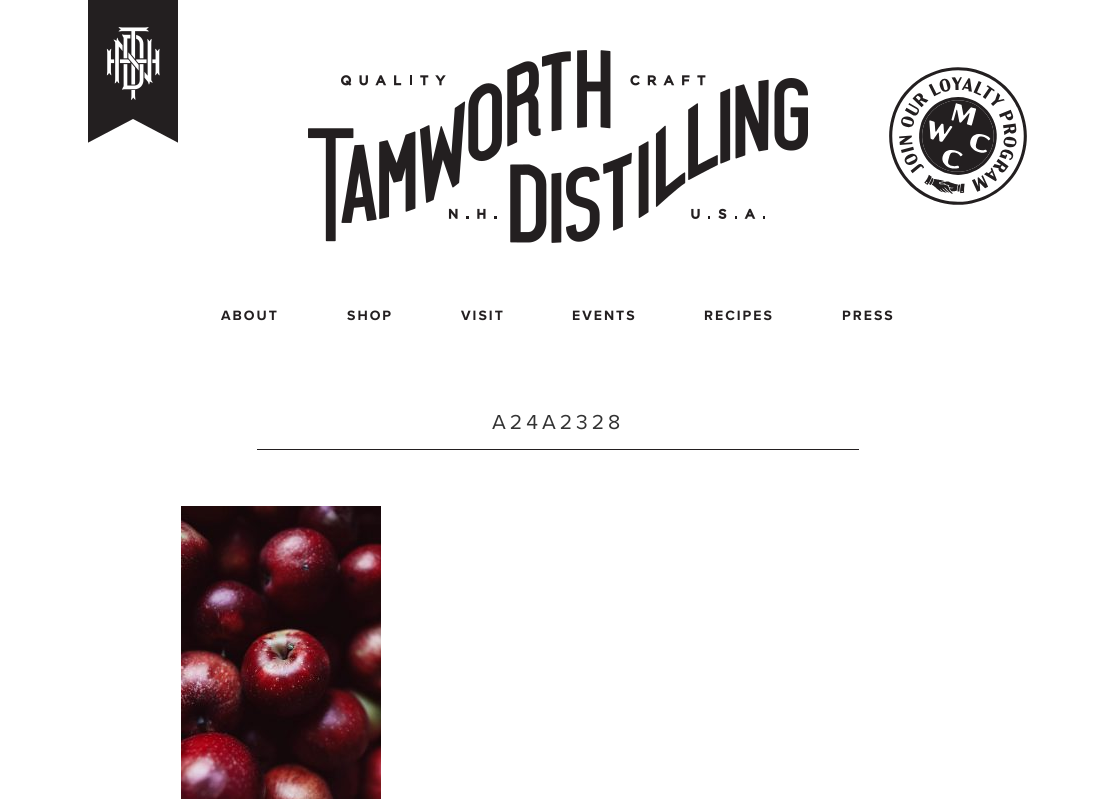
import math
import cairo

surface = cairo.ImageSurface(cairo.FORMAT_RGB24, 1116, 799)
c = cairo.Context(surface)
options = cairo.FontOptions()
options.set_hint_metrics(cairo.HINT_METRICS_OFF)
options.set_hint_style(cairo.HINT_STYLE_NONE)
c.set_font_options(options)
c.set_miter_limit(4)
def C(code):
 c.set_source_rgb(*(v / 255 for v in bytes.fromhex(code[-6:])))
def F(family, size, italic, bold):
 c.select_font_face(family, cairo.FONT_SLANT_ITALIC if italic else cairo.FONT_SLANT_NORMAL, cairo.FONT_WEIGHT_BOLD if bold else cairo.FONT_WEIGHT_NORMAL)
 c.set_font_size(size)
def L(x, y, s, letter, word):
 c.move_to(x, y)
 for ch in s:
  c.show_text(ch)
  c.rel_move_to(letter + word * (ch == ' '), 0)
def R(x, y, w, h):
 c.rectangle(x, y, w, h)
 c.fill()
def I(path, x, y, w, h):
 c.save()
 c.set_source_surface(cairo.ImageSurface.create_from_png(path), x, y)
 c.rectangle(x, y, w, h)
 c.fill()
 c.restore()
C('ffffff')
c.paint()
I('1.png',88,0,90,143)
I('2.png',308,50,500,193)
I('3.png',889,67,138,138)
F('Proxima Nova',14,0,1)
C('231f20')
L(221,320,'ABOUT',2,0)
L(347,320,'SHOP',2,0)
L(461,320,'VISIT',2,0)
L(572,320,'EVENTS',2,0)
L(704,320,'RECIPES',2,0)
L(842,320,'PRESS',2,0)
R(257,449,602,1)
F('Proxima Nova',21,0,0)
C('333333')
L(492,429,'A24A2328',4,0)
I('4.png',181,506,200,293)
surface.write_to_png('o.png')
